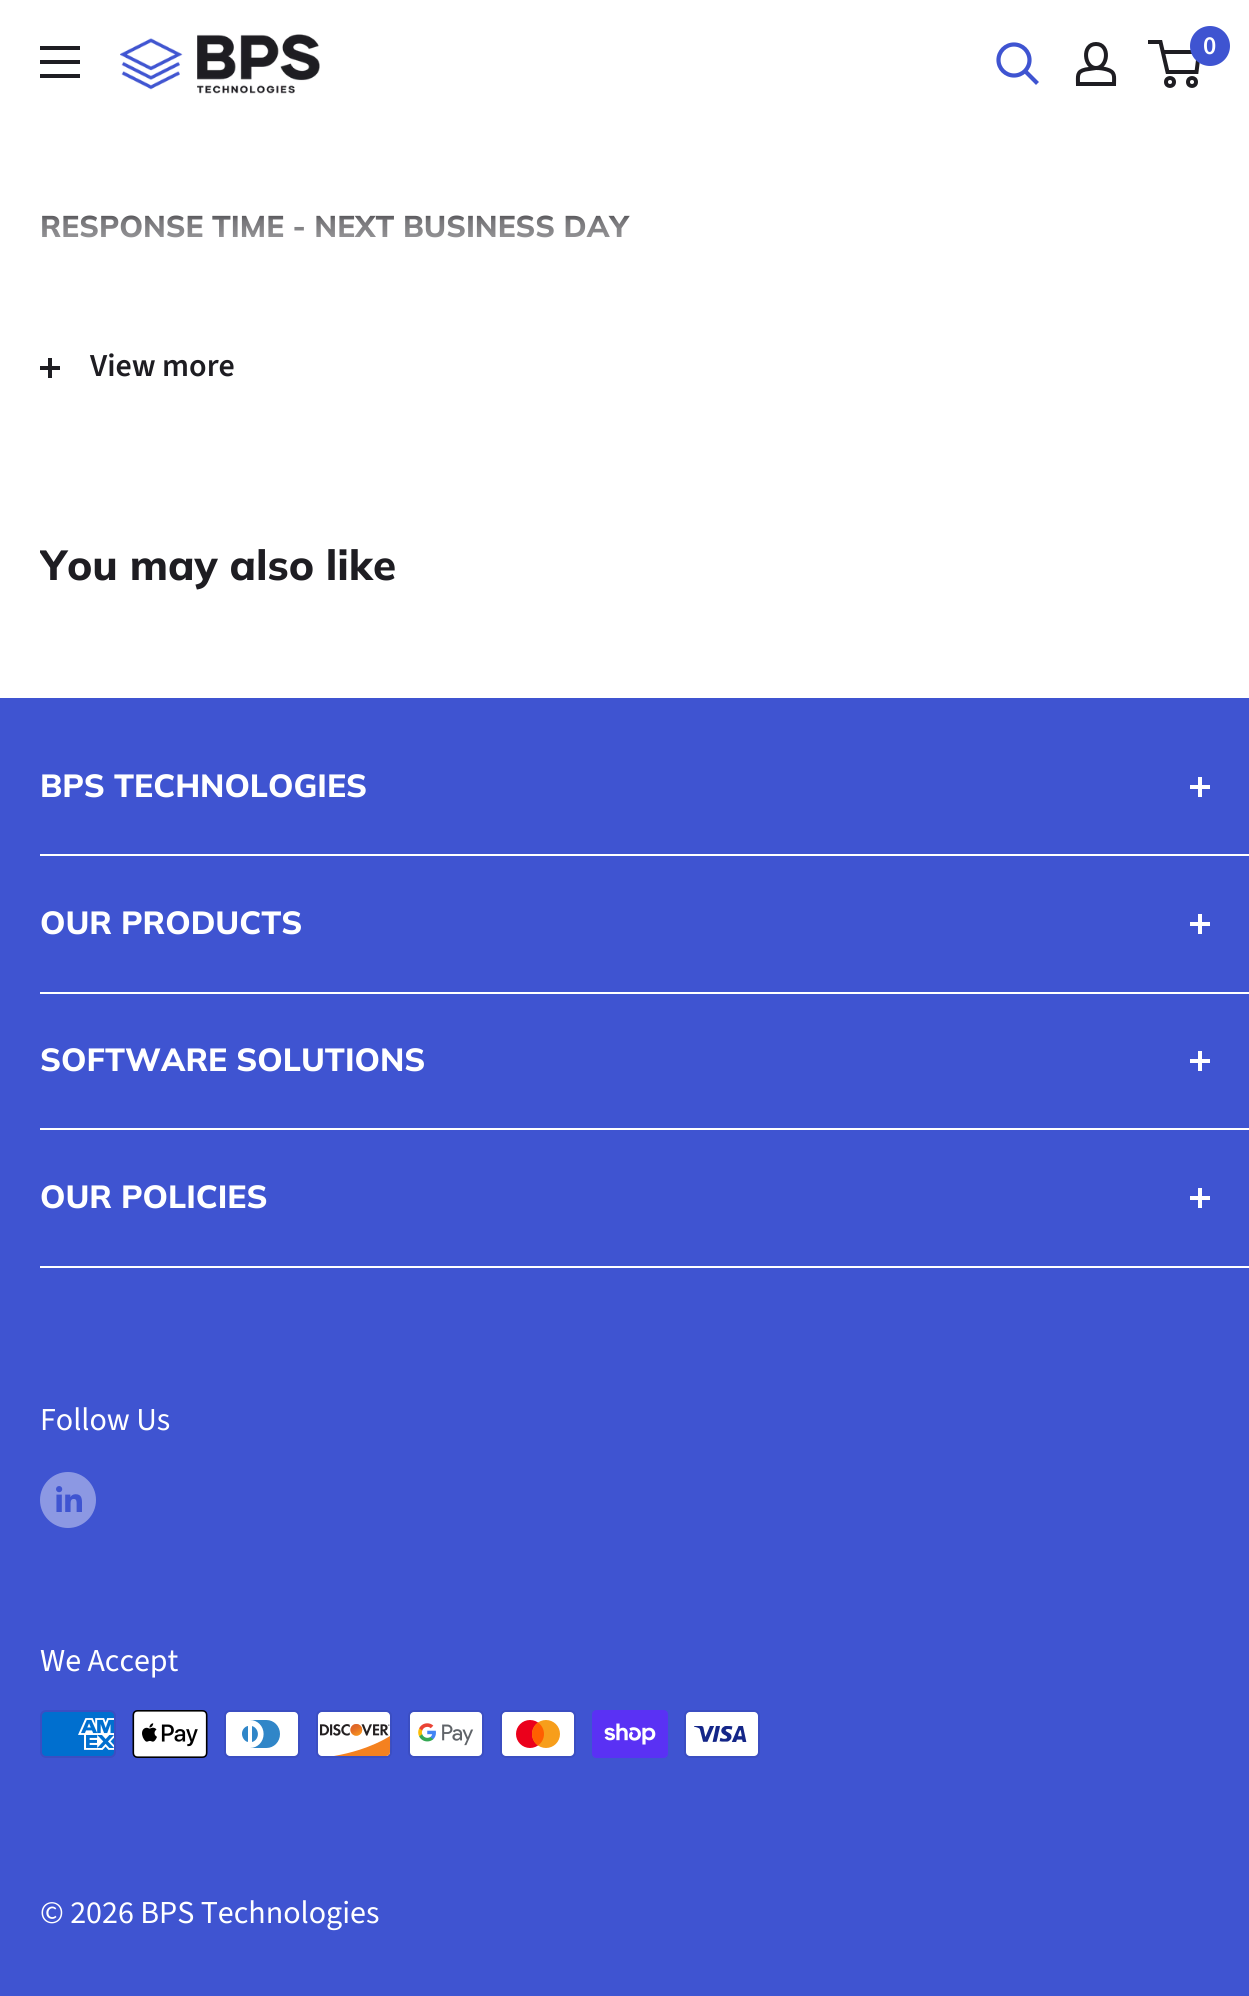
import math
import cairo

surface = cairo.ImageSurface(cairo.FORMAT_RGB24, 1249, 1996)
c = cairo.Context(surface)
options = cairo.FontOptions()
options.set_hint_metrics(cairo.HINT_METRICS_OFF)
options.set_hint_style(cairo.HINT_STYLE_NONE)
c.set_font_options(options)
c.set_miter_limit(4)
def C(code):
 c.set_source_rgb(*(v / 255 for v in bytes.fromhex(code[-6:])))
def F(family, size, italic, bold):
 c.select_font_face(family, cairo.FONT_SLANT_ITALIC if italic else cairo.FONT_SLANT_NORMAL, cairo.FONT_WEIGHT_BOLD if bold else cairo.FONT_WEIGHT_NORMAL)
 c.set_font_size(size)
def T(x, y, s):
 c.move_to(x, y)
 c.show_text(s)
def R(x, y, w, h):
 c.rectangle(x, y, w, h)
 c.fill()
def I(path, x, y, w, h):
 c.save()
 c.set_source_surface(cairo.ImageSurface.create_from_png(path), x, y)
 c.rectangle(x, y, w, h)
 c.fill()
 c.restore()
C('ffffff')
c.paint()
C('1e1d22')
c.set_fill_rule(cairo.FILL_RULE_EVEN_ODD)
c.new_path()
c.move_to(40,74)
c.line_to(80,74)
c.line_to(80,78)
c.line_to(40,78)
c.close_path()
c.move_to(40,46)
c.line_to(80,46)
c.line_to(80,50)
c.line_to(40,50)
c.close_path()
c.move_to(40,60)
c.line_to(80,60)
c.line_to(80,64)
c.line_to(40,64)
c.close_path()
c.fill()
I('1.png',120,34,200,60)
c.new_path()
c.move_to(1036,82)
c.line_to(1025.5,71.5)
C('3f54d1')
c.set_line_width(4.2)
c.set_line_cap(cairo.LINE_CAP_SQUARE)
c.stroke()
c.arc(1014,60,15.5,0,2 * math.pi)
c.set_line_cap(cairo.LINE_CAP_BUTT)
c.stroke()
c.new_path()
c.move_to(1096,68)
c.curve_to(1100,68,1103.5,68.5,1107,69.5)
c.curve_to(1115.5,72,1114,76.5,1114,84)
c.line_to(1078,84)
c.curve_to(1078,76,1076.5,71.5,1085.5,69.5)
c.close_path()
c.move_to(1096,68)
c.curve_to(1084,68,1081.5,44,1096,44)
c.curve_to(1110.5,44,1108,68,1096,68)
c.close_path()
C('1e1d22')
c.set_line_width(4)
c.stroke()
c.arc(1170,82,4,0,2 * math.pi)
c.stroke()
c.arc(1192,82,4,0,2 * math.pi)
c.stroke()
c.new_path()
c.move_to(1162.5,52)
c.line_to(1199,52)
c.line_to(1196.5,72)
c.line_to(1167.5,72)
c.line_to(1160.5,42)
c.line_to(1148,42)
c.stroke()
C('3f54d1')
c.arc(1210,46,20,0,2 * math.pi)
c.fill()
F('Source Sans Pro SemiBold',26,0,0)
C('ffffff')
T(1203,54,'0')
F('Muli ExtraBold',30,0,0)
C('1e1d22')
T(40,237,'RESPONSE TIME - NEXT BUSINESS DAY')
gradient = cairo.LinearGradient(625,206,625,306)
gradient.add_color_stop_rgba(0,1,1,1,0)
gradient.add_color_stop_rgba(.15,1,1,1,.4)
gradient.add_color_stop_rgba(1,1,1,1,1)
c.set_source(gradient)
R(42,215,588,23)
C('1e1d22')
R(48,358,4,20)
R(40,366,20,4)
F('Source Sans Pro SemiBold',32,0,0)
T(90,376,'View more')
c.save()
c.set_fill_rule(cairo.FILL_RULE_WINDING)
c.rectangle(40,532,1170,66)
c.clip()
F('Muli ExtraBold',42,0,0)
T(40,580,'You may also like')
c.restore()
C('3f54d1')
R(0,698,1249,1298)
C('ffffff')
R(40,854,1209,2)
F('Muli ExtraBold',32,0,0)
T(40,797,'BPS TECHNOLOGIES')
R(1198,777,4,20)
R(1190,785,20,4)
R(40,992,1209,2)
T(40,934,'OUR PRODUCTS')
R(1198,914,4,20)
R(1190,922,20,4)
R(40,1128,1209,2)
T(40,1071,'SOFTWARE SOLUTIONS')
R(1198,1051,4,20)
R(1190,1059,20,4)
R(40,1266,1209,2)
T(40,1208,'OUR POLICIES')
R(1198,1188,4,20)
R(1190,1196,20,4)
F('Source Sans Pro',32,0,0)
T(40,1430,'Follow Us')
I('2.png',40,1472,56,56)
T(40,1671,'We Accept')
I('3.png',40,1710,76,48)
I('4.png',132,1710,76,48)
I('5.png',224,1710,76,48)
I('6.png',316,1710,76,48)
I('7.png',408,1710,76,48)
I('8.png',500,1710,76,48)
I('9.png',592,1710,76,48)
I('10.png',684,1710,76,48)
T(40,1923,'© 2026 BPS Technologies')
surface.write_to_png('o.png')
